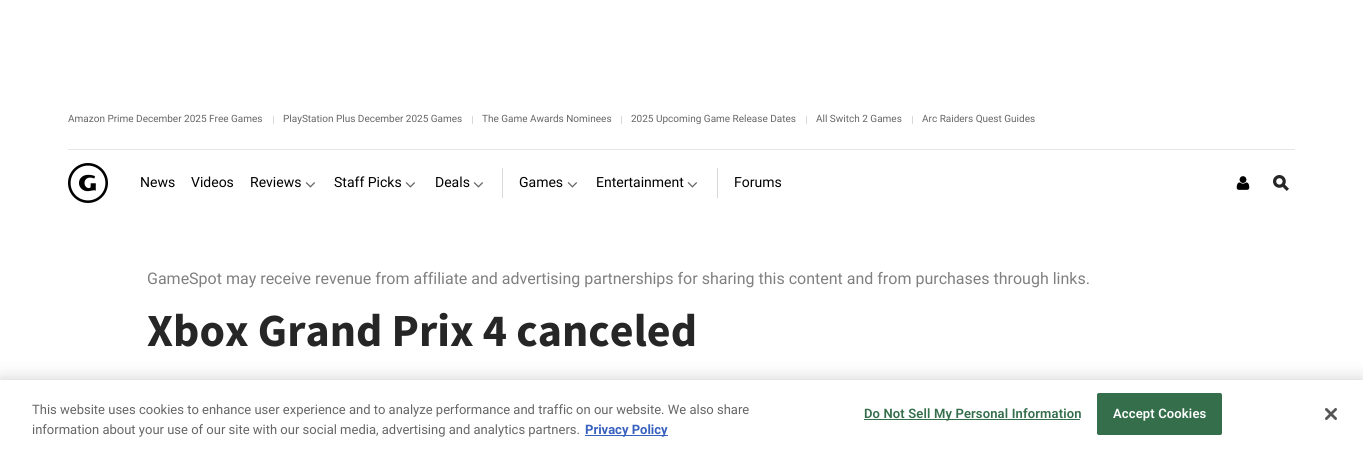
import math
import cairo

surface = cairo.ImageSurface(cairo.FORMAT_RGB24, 1363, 451)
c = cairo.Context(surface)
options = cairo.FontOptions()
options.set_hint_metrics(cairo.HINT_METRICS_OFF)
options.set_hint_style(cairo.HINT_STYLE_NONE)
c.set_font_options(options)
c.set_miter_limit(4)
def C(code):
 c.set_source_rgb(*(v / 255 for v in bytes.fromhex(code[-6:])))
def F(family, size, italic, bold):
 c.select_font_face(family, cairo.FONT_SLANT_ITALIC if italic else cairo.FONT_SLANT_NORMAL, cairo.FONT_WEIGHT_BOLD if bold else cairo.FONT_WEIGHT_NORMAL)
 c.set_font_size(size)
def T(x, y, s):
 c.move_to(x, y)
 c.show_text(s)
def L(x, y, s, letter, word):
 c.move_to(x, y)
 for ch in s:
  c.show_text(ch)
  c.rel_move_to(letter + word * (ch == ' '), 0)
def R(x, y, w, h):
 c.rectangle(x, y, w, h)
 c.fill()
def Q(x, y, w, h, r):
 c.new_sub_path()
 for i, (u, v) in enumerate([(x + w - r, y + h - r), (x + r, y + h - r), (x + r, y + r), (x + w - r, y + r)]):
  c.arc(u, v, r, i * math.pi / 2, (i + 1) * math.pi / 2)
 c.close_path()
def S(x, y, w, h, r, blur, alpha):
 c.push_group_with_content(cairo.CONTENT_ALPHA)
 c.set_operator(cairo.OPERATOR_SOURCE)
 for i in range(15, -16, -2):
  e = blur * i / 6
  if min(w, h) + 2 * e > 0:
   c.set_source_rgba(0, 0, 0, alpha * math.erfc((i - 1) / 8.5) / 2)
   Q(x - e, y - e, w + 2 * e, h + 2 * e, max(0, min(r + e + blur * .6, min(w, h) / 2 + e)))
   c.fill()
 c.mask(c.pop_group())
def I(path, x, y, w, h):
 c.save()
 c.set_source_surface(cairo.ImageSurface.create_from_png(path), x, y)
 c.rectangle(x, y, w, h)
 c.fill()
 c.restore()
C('ffffff')
c.paint()
C('e6e6e6')
R(68,149,1227,1)
F('Roboto',10,0,0)
C('666666')
T(68,122,'Amazon Prime December 2025 Free Games')
C('d8d8d8')
R(273,116,1,8)
C('666666')
T(283,122,'PlayStation Plus December 2025 Games')
C('d8d8d8')
R(472,116,1,8)
C('666666')
T(482,122,'The Game Awards Nominees')
C('d8d8d8')
R(621,116,1,8)
C('666666')
T(631,122,'2025 Upcoming Game Release Dates')
C('d8d8d8')
R(806,116,1,8)
C('666666')
T(816,122,'All Switch 2 Games')
C('d8d8d8')
R(912,116,1,8)
C('666666')
T(922,122,'Arc Raiders Quest Guides')
I('1.png',68,163,40,40)
F('Roboto',14,0,0)
C('000000')
T(140,187,'News')
T(191,187,'Videos')
T(250,187,'Reviews')
I('2.png',305,182,10,6)
T(334,187,'Staff Picks')
I('2.png',405,182,10,6)
T(435,187,'Deals')
I('2.png',473,182,10,6)
C('d8d8d8')
R(502,168,1,30)
C('000000')
T(519,187,'Games')
I('2.png',567,182,10,6)
T(596,187,'Entertainment')
I('2.png',687,182,10,6)
C('d8d8d8')
R(717,168,1,30)
C('000000')
T(734,187,'Forums')
I('3.png',1236,176,14,14)
I('4.png',1273,175,16,16)
F('Roboto',16,0,0)
C('808080')
T(147,284,'GameSpot may receive revenue from affiliate and advertising partnerships for sharing this content and from purchases through links.')
F('Source Sans Pro',46,0,1)
C('262626')
T(147,346,'Xbox Grand Prix 4 canceled')
C('000000')
S(0,380,1363,71,0,9,.2)
C('ffffff')
R(0,380,1363,71)
F('Roboto',13,0,0)
C('666666')
T(32,414,'This website uses cookies to enhance user experience and to analyze performance and traffic on our website. We also share')
T(32,434,'information about your use of our site with our social media, advertising and analytics partners.')
C('3860be')
R(585,435,83,1)
F('Roboto',13,0,1)
T(585,434,'Privacy Policy')
C('346e4a')
R(864,419,216,1)
F('Roboto SemiBold',13,0,0)
L(864,418,'Do Not Sell My Personal Information',.15,0)
Q(1097.5,393.5,124,41,1.5)
c.fill_preserve()
c.set_line_width(1)
c.stroke()
C('ffffff')
L(1113,418,'Accept Cookies',.15,0)
I('5.png',1325,408,12,12)
surface.write_to_png('o.png')
